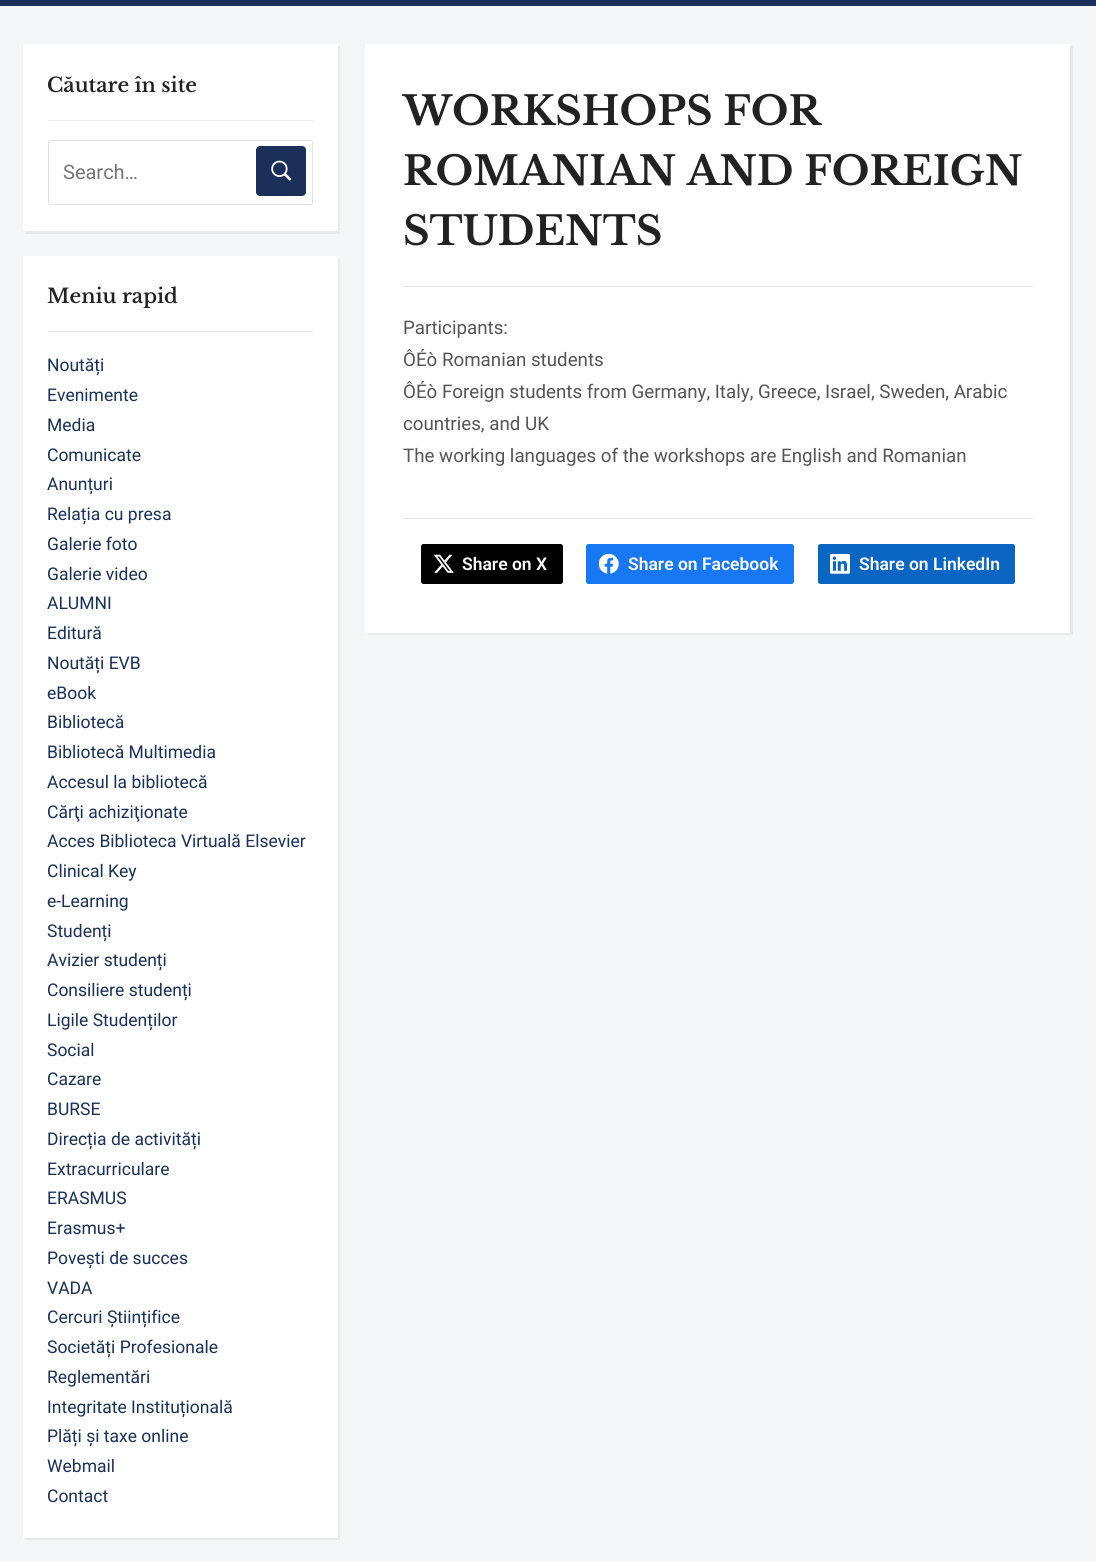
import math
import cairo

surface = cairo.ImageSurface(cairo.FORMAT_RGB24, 1096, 1562)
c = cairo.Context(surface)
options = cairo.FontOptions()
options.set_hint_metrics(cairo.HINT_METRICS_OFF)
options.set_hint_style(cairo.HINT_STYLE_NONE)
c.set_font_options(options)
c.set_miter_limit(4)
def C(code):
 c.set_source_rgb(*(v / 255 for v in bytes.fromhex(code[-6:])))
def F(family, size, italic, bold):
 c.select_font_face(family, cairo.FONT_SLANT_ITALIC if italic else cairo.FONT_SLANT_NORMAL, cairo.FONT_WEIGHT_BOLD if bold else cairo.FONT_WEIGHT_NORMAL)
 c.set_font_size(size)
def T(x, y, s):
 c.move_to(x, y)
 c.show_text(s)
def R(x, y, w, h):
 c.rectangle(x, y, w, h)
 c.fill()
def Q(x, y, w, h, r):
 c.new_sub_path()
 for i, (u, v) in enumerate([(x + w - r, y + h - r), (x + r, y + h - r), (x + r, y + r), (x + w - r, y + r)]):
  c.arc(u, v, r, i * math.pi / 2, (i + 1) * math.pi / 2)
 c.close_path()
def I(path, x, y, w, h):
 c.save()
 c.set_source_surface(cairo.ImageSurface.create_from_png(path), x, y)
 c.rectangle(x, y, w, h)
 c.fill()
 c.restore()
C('f4f6f8')
c.paint()
C('1b3058')
R(0,0,1096,6)
C('e8eaec')
c.new_path()
c.move_to(25,231)
c.line_to(25,234)
c.line_to(340,234)
c.line_to(340,46)
c.line_to(338,46)
c.line_to(338,231)
c.close_path()
c.fill()
C('ffffff')
R(23,44,315,187)
C('e6e6e6')
R(48,120,265,1)
F('Libre Baskerville SemiBold',20,0,0)
C('222222')
T(47,92,'Căutare în site')
Q(48.5,140.5,264,64,2)
C('e2e2e2')
c.set_line_width(1)
c.stroke()
F('Roboto',20,0,0)
C('757575')
T(63,179,'Search…')
C('1b3058')
Q(256,146,50,50,4)
c.fill()
I('1.png',271,160,21,21)
C('e8eaec')
c.new_path()
c.move_to(25,1538)
c.line_to(25,1540)
c.line_to(340,1540)
c.line_to(340,259)
c.line_to(338,259)
c.line_to(338,1538)
c.close_path()
c.fill()
C('ffffff')
R(23,256,315,1282)
C('e6e6e6')
R(48,331,265,1)
F('Libre Baskerville SemiBold',20,0,0)
C('222222')
T(47,303,'Meniu rapid')
F('Roboto',17.5,0,0)
C('1b3058')
T(47,371,'Noutăți')
T(47,401,'Evenimente')
T(47,431,'Media')
T(47,461,'Comunicate')
T(47,490,'Anunțuri')
T(47,520,'Relația cu presa')
T(47,550,'Galerie foto')
T(47,580,'Galerie video')
T(47,609,'ALUMNI')
T(47,639,'Editură')
T(47,669,'Noutăți EVB')
T(47,699,'eBook')
T(47,728,'Bibliotecă')
T(47,758,'Bibliotecă Multimedia')
T(47,788,'Accesul la bibliotecă')
T(47,818,'Cărţi achiziţionate')
T(47,847,'Acces Biblioteca Virtuală Elsevier')
T(47,877,'Clinical Key')
T(47,907,'e-Learning')
T(47,937,'Studenți')
T(47,966,'Avizier studenți')
T(47,996,'Consiliere studenți')
T(47,1026,'Ligile Studenților')
T(47,1056,'Social')
T(47,1085,'Cazare')
T(47,1115,'BURSE')
T(47,1145,'Direcția de activități')
T(47,1175,'Extracurriculare')
T(47,1204,'ERASMUS')
T(47,1234,'Erasmus+')
T(47,1264,'Povești de succes')
T(47,1294,'VADA')
T(47,1323,'Cercuri Științifice')
T(47,1353,'Societăți Profesionale')
T(47,1383,'Reglementări')
T(47,1413,'Integritate Instituțională')
T(47,1442,'Plăți și taxe online')
T(47,1472,'Webmail')
T(47,1502,'Contact')
C('e8eaec')
c.new_path()
c.move_to(368,632)
c.line_to(368,635)
c.line_to(1073,635)
c.line_to(1073,46)
c.line_to(1070,46)
c.line_to(1070,632)
c.close_path()
c.fill()
C('ffffff')
R(365,44,705,589)
F('Libre Baskerville',40,0,1)
C('222222')
T(403,125,'WORKSHOPS FOR')
T(403,185,'ROMANIAN AND FOREIGN')
T(403,245,'STUDENTS')
C('e7e7e7')
R(403,286,630,1)
F('Roboto',18.75,0,0)
C('555555')
T(403,334,'Participants:')
T(403,366,'ÔÉò Romanian students')
T(403,398,'ÔÉò Foreign students from Germany, Italy, Greece, Israel, Sweden, Arabic')
T(403,430,'countries, and UK')
T(403,462,'The working languages of the workshops are English and Romanian')
C('e7e7e7')
R(403,518,630,1)
C('000000')
Q(421,544,142,40,2.5)
c.fill()
I('2.png',434,554,20,19)
F('Roboto SemiBold',17.5,0,0)
C('ffffff')
T(462,570,'Share on X')
C('1877f2')
Q(586,544,208,40,2.5)
c.fill()
I('3.png',599,554,20,20)
C('ffffff')
T(628,570,'Share on Facebook')
C('0a66c2')
Q(818,544,197,40,2.5)
c.fill()
I('4.png',830,554,20,20)
C('ffffff')
T(859,570,'Share on LinkedIn')
surface.write_to_png('o.png')
